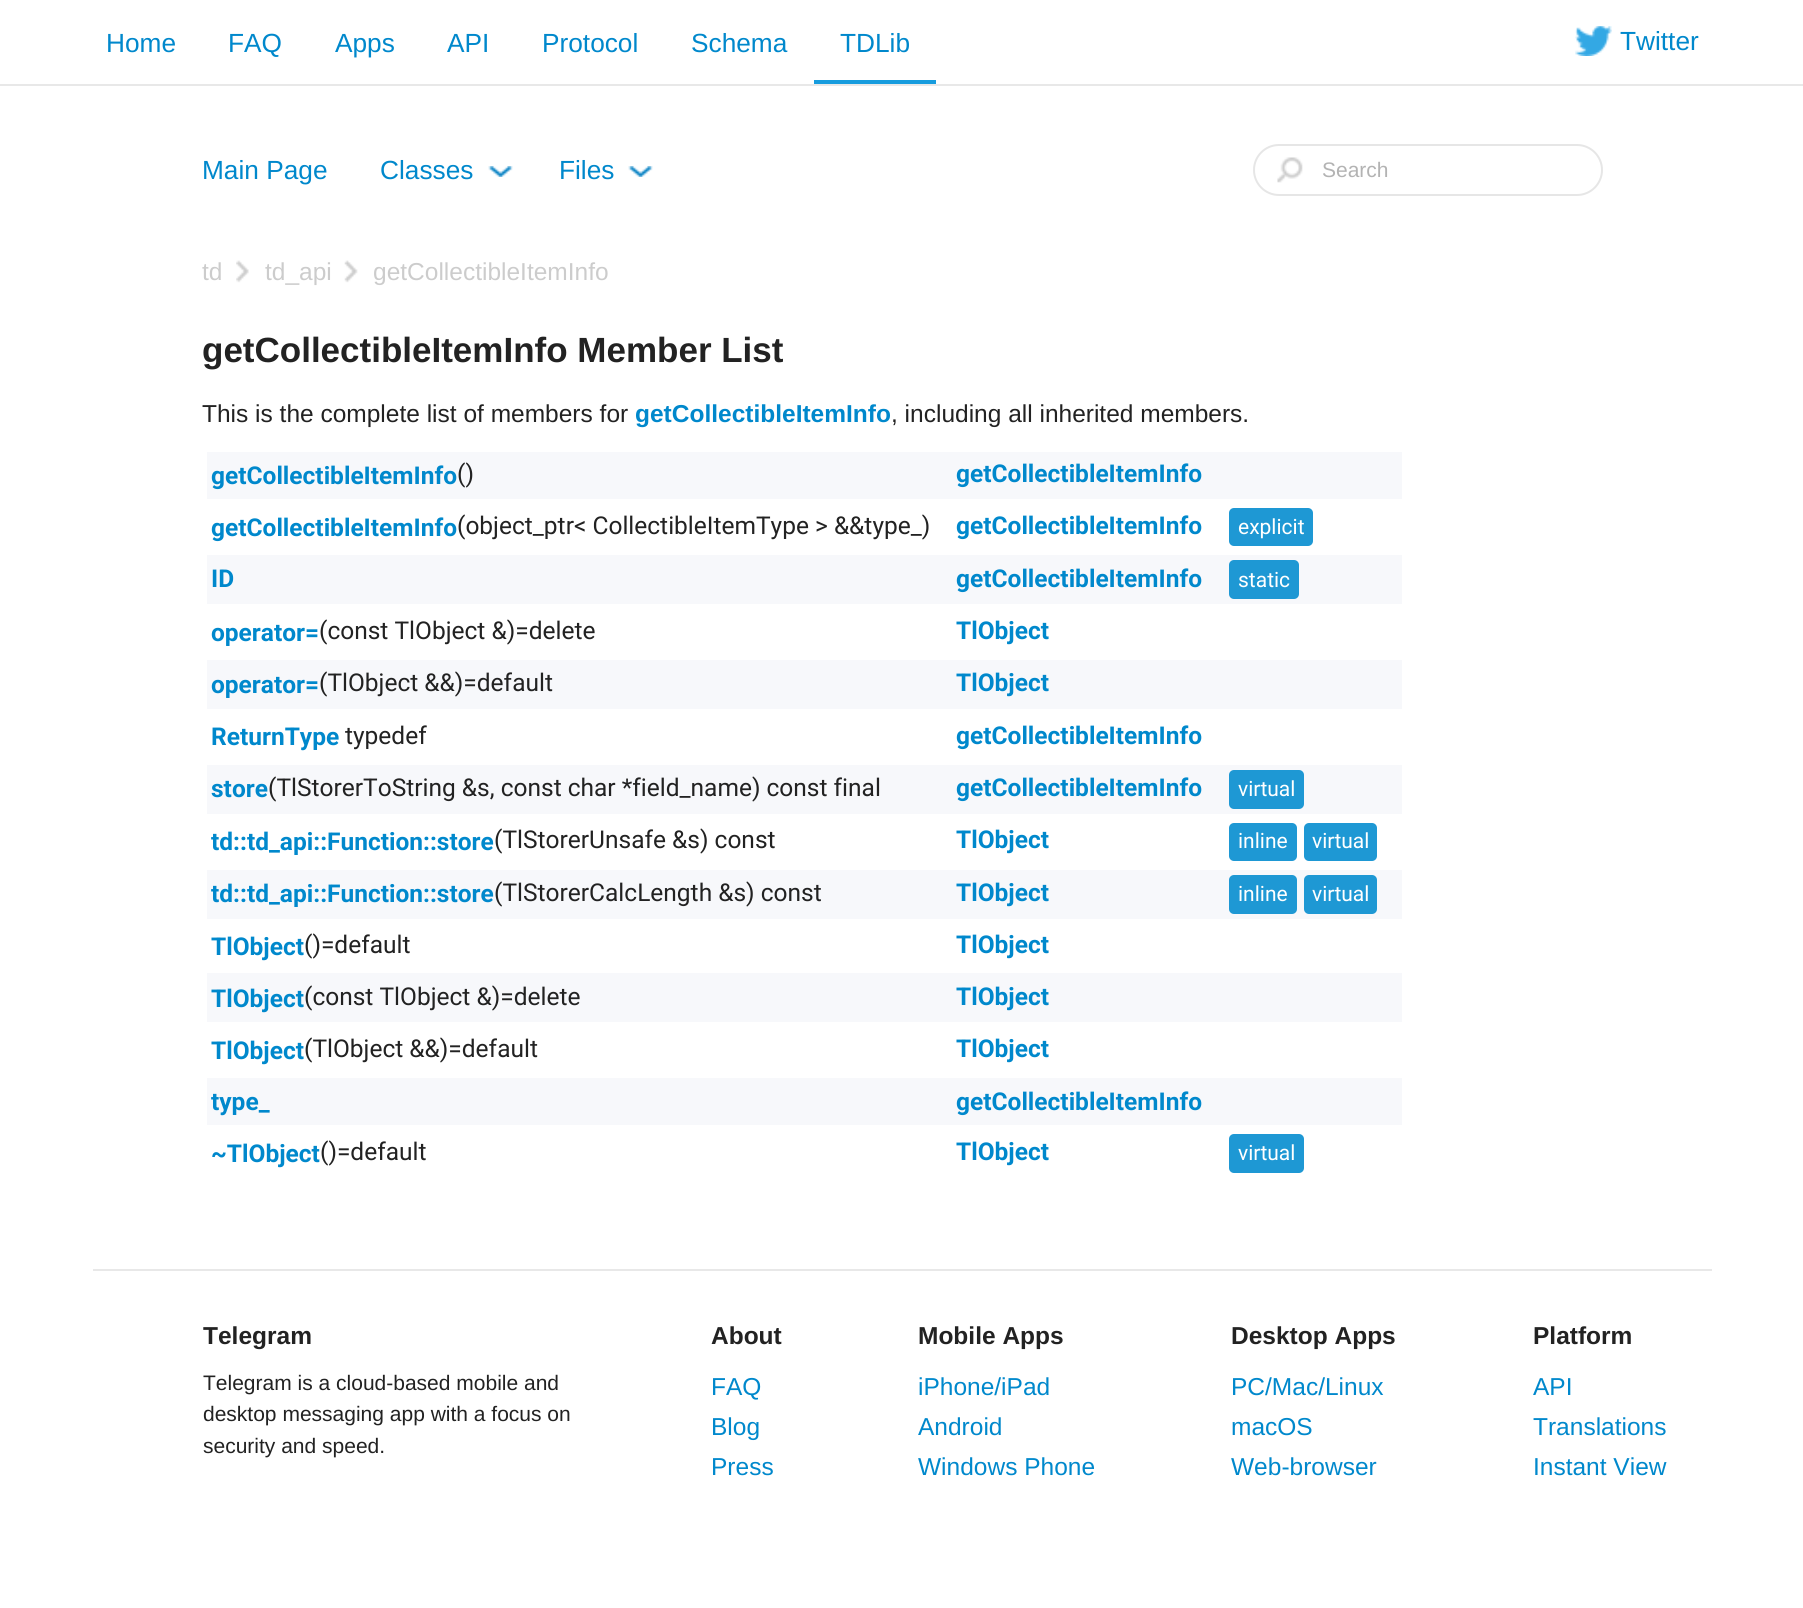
import math
import cairo

surface = cairo.ImageSurface(cairo.FORMAT_RGB24, 1803, 1608)
c = cairo.Context(surface)
options = cairo.FontOptions()
options.set_hint_metrics(cairo.HINT_METRICS_OFF)
options.set_hint_style(cairo.HINT_STYLE_NONE)
c.set_font_options(options)
c.set_miter_limit(4)
def C(code):
 c.set_source_rgb(*(v / 255 for v in bytes.fromhex(code[-6:])))
def F(family, size, italic, bold):
 c.select_font_face(family, cairo.FONT_SLANT_ITALIC if italic else cairo.FONT_SLANT_NORMAL, cairo.FONT_WEIGHT_BOLD if bold else cairo.FONT_WEIGHT_NORMAL)
 c.set_font_size(size)
def T(x, y, s):
 c.move_to(x, y)
 c.show_text(s)
def R(x, y, w, h):
 c.rectangle(x, y, w, h)
 c.fill()
def Q(x, y, w, h, r):
 c.new_sub_path()
 for i, (u, v) in enumerate([(x + w - r, y + h - r), (x + r, y + h - r), (x + r, y + r), (x + w - r, y + r)]):
  c.arc(u, v, r, i * math.pi / 2, (i + 1) * math.pi / 2)
 c.close_path()
def I(path, x, y, w, h):
 c.save()
 c.set_source_surface(cairo.ImageSurface.create_from_png(path), x, y)
 c.rectangle(x, y, w, h)
 c.fill()
 c.restore()
C('ffffff')
c.paint()
C('e8e8e8')
R(0,84,1803,2)
F('Liberation Sans',26.25,0,0)
C('0088cc')
T(106,52,'Home')
T(228,52,'FAQ')
T(335,52,'Apps')
T(447,52,'API')
T(542,52,'Protocol')
T(691,52,'Schema')
C('179cde')
R(814,80,122,4)
C('0088cc')
T(840,52,'TDLib')
I('1.png',1575,26,37,30)
T(1620,50,'Twitter')
T(202,179,'Main Page')
T(380,179,'Classes')
I('2.png',488,166,25,11)
T(559,179,'Files')
I('2.png',628,166,25,11)
Q(1254,145,348,50,25)
C('e6e6e6')
c.stroke()
I('3.png',1277,157,26,26)
F('Liberation Sans',21,0,0)
C('b3b3b3')
T(1322,177,'Search')
F('Liberation Sans',24.5,0,0)
C('cccccc')
T(202,280,'td')
I('4.png',236,260,13,23)
T(265,280,'td_api')
I('5.png',344,260,14,23)
T(373,280,'getCollectibleItemInfo')
F('Liberation Sans',35,0,1)
C('222222')
T(202,362,'getCollectibleItemInfo Member List')
F('Liberation Sans',24.5,0,0)
T(202,422,'This is the complete list of members for')
F('Liberation Sans',24.5,0,1)
C('0088cc')
T(635,422,'getCollectibleItemInfo')
F('Liberation Sans',24.5,0,0)
C('222222')
T(891,422,', including all inherited members.')
C('f7f8fb')
R(207,452,1195,47)
F('Roboto',24.5,0,1)
C('0088cc')
T(211,484,'getCollectibleItemInfo')
F('Roboto',24.5,0,0)
C('222222')
T(457,482,'()')
F('Roboto',24.5,0,1)
C('0088cc')
T(956,482,'getCollectibleItemInfo')
T(211,536,'getCollectibleItemInfo')
F('Roboto',24.5,0,0)
C('222222')
T(457,534,'(object_ptr< CollectibleItemType > &&type_)')
F('Roboto',24.5,0,1)
C('0088cc')
T(956,534,'getCollectibleItemInfo')
C('1e98d4')
Q(1229,508,84,38,5)
c.fill()
F('Roboto',21,0,0)
C('ffffff')
T(1238,534,'explicit')
C('f7f8fb')
R(207,555,1195,49)
F('Roboto',24.5,0,1)
C('0088cc')
T(211,587,'ID')
T(956,587,'getCollectibleItemInfo')
C('1e98d4')
Q(1229,560,70,39,5)
c.fill()
F('Roboto',21,0,0)
C('ffffff')
T(1238,587,'static')
F('Roboto',24.5,0,1)
C('0088cc')
T(211,641,'operator=')
F('Roboto',24.5,0,0)
C('222222')
T(319,639,'(const TlObject &)=delete')
F('Roboto',24.5,0,1)
C('0088cc')
T(956,639,'TlObject')
C('f7f8fb')
R(207,660,1195,49)
C('0088cc')
T(211,693,'operator=')
F('Roboto',24.5,0,0)
C('222222')
T(319,691,'(TlObject &&)=default')
F('Roboto',24.5,0,1)
C('0088cc')
T(956,691,'TlObject')
T(211,745,'ReturnType')
F('Roboto',24.5,0,0)
C('222222')
T(345,744,'typedef')
F('Roboto',24.5,0,1)
C('0088cc')
T(956,744,'getCollectibleItemInfo')
C('f7f8fb')
R(207,765,1195,49)
C('0088cc')
T(211,797,'store')
F('Roboto',24.5,0,0)
C('222222')
T(268,796,'(TlStorerToString &s, const char *field_name) const final')
F('Roboto',24.5,0,1)
C('0088cc')
T(956,796,'getCollectibleItemInfo')
C('1e98d4')
Q(1229,770,75,39,5)
c.fill()
F('Roboto',21,0,0)
C('ffffff')
T(1238,796,'virtual')
F('Roboto',24.5,0,1)
C('0088cc')
T(211,850,'td::td_api::Function::store')
F('Roboto',24.5,0,0)
C('222222')
T(494,848,'(TlStorerUnsafe &s) const')
F('Roboto',24.5,0,1)
C('0088cc')
T(956,848,'TlObject')
C('1e98d4')
Q(1229,823,68,38,5)
c.fill()
F('Roboto',21,0,0)
C('ffffff')
T(1238,848,'inline')
C('1e98d4')
Q(1304,823,73,38,5)
c.fill()
C('ffffff')
T(1312,848,'virtual')
C('f7f8fb')
R(207,870,1195,49)
F('Roboto',24.5,0,1)
C('0088cc')
T(211,902,'td::td_api::Function::store')
F('Roboto',24.5,0,0)
C('222222')
T(494,901,'(TlStorerCalcLength &s) const')
F('Roboto',24.5,0,1)
C('0088cc')
T(956,901,'TlObject')
C('1e98d4')
Q(1229,875,68,39,5)
c.fill()
F('Roboto',21,0,0)
C('ffffff')
T(1238,901,'inline')
C('1e98d4')
Q(1304,875,73,39,5)
c.fill()
C('ffffff')
T(1312,901,'virtual')
F('Roboto',24.5,0,1)
C('0088cc')
T(211,955,'TlObject')
F('Roboto',24.5,0,0)
C('222222')
T(304,953,'()=default')
F('Roboto',24.5,0,1)
C('0088cc')
T(956,953,'TlObject')
C('f7f8fb')
R(207,973,1195,49)
C('0088cc')
T(211,1007,'TlObject')
F('Roboto',24.5,0,0)
C('222222')
T(304,1005,'(const TlObject &)=delete')
F('Roboto',24.5,0,1)
C('0088cc')
T(956,1005,'TlObject')
T(211,1059,'TlObject')
F('Roboto',24.5,0,0)
C('222222')
T(304,1057,'(TlObject &&)=default')
F('Roboto',24.5,0,1)
C('0088cc')
T(956,1057,'TlObject')
C('f7f8fb')
R(207,1078,1195,47)
C('0088cc')
T(211,1110,'type_')
T(956,1110,'getCollectibleItemInfo')
T(211,1162,'~TlObject')
F('Roboto',24.5,0,0)
C('222222')
T(320,1160,'()=default')
F('Roboto',24.5,0,1)
C('0088cc')
T(956,1160,'TlObject')
C('1e98d4')
Q(1229,1134,75,39,5)
c.fill()
F('Roboto',21,0,0)
C('ffffff')
T(1238,1160,'virtual')
C('e8e8e8')
R(93,1269,1619,2)
F('Liberation Sans',24.5,0,1)
C('222222')
T(203,1344,'Telegram')
F('Liberation Sans',21,0,0)
T(203,1390,'Telegram is a cloud-based mobile and')
T(203,1421,'desktop messaging app with a focus on')
T(203,1453,'security and speed.')
F('Liberation Sans',24.5,0,1)
T(711,1344,'About')
F('Liberation Sans',24.5,0,0)
C('0088cc')
T(711,1395,'FAQ')
T(711,1435,'Blog')
T(711,1475,'Press')
F('Liberation Sans',24.5,0,1)
C('222222')
T(918,1344,'Mobile Apps')
F('Liberation Sans',24.5,0,0)
C('0088cc')
T(918,1395,'iPhone/iPad')
T(918,1435,'Android')
T(918,1475,'Windows Phone')
F('Liberation Sans',24.5,0,1)
C('222222')
T(1231,1344,'Desktop Apps')
F('Liberation Sans',24.5,0,0)
C('0088cc')
T(1231,1395,'PC/Mac/Linux')
T(1231,1435,'macOS')
T(1231,1475,'Web-browser')
F('Liberation Sans',24.5,0,1)
C('222222')
T(1533,1344,'Platform')
F('Liberation Sans',24.5,0,0)
C('0088cc')
T(1533,1395,'API')
T(1533,1435,'Translations')
T(1533,1475,'Instant View')
surface.write_to_png('o.png')
